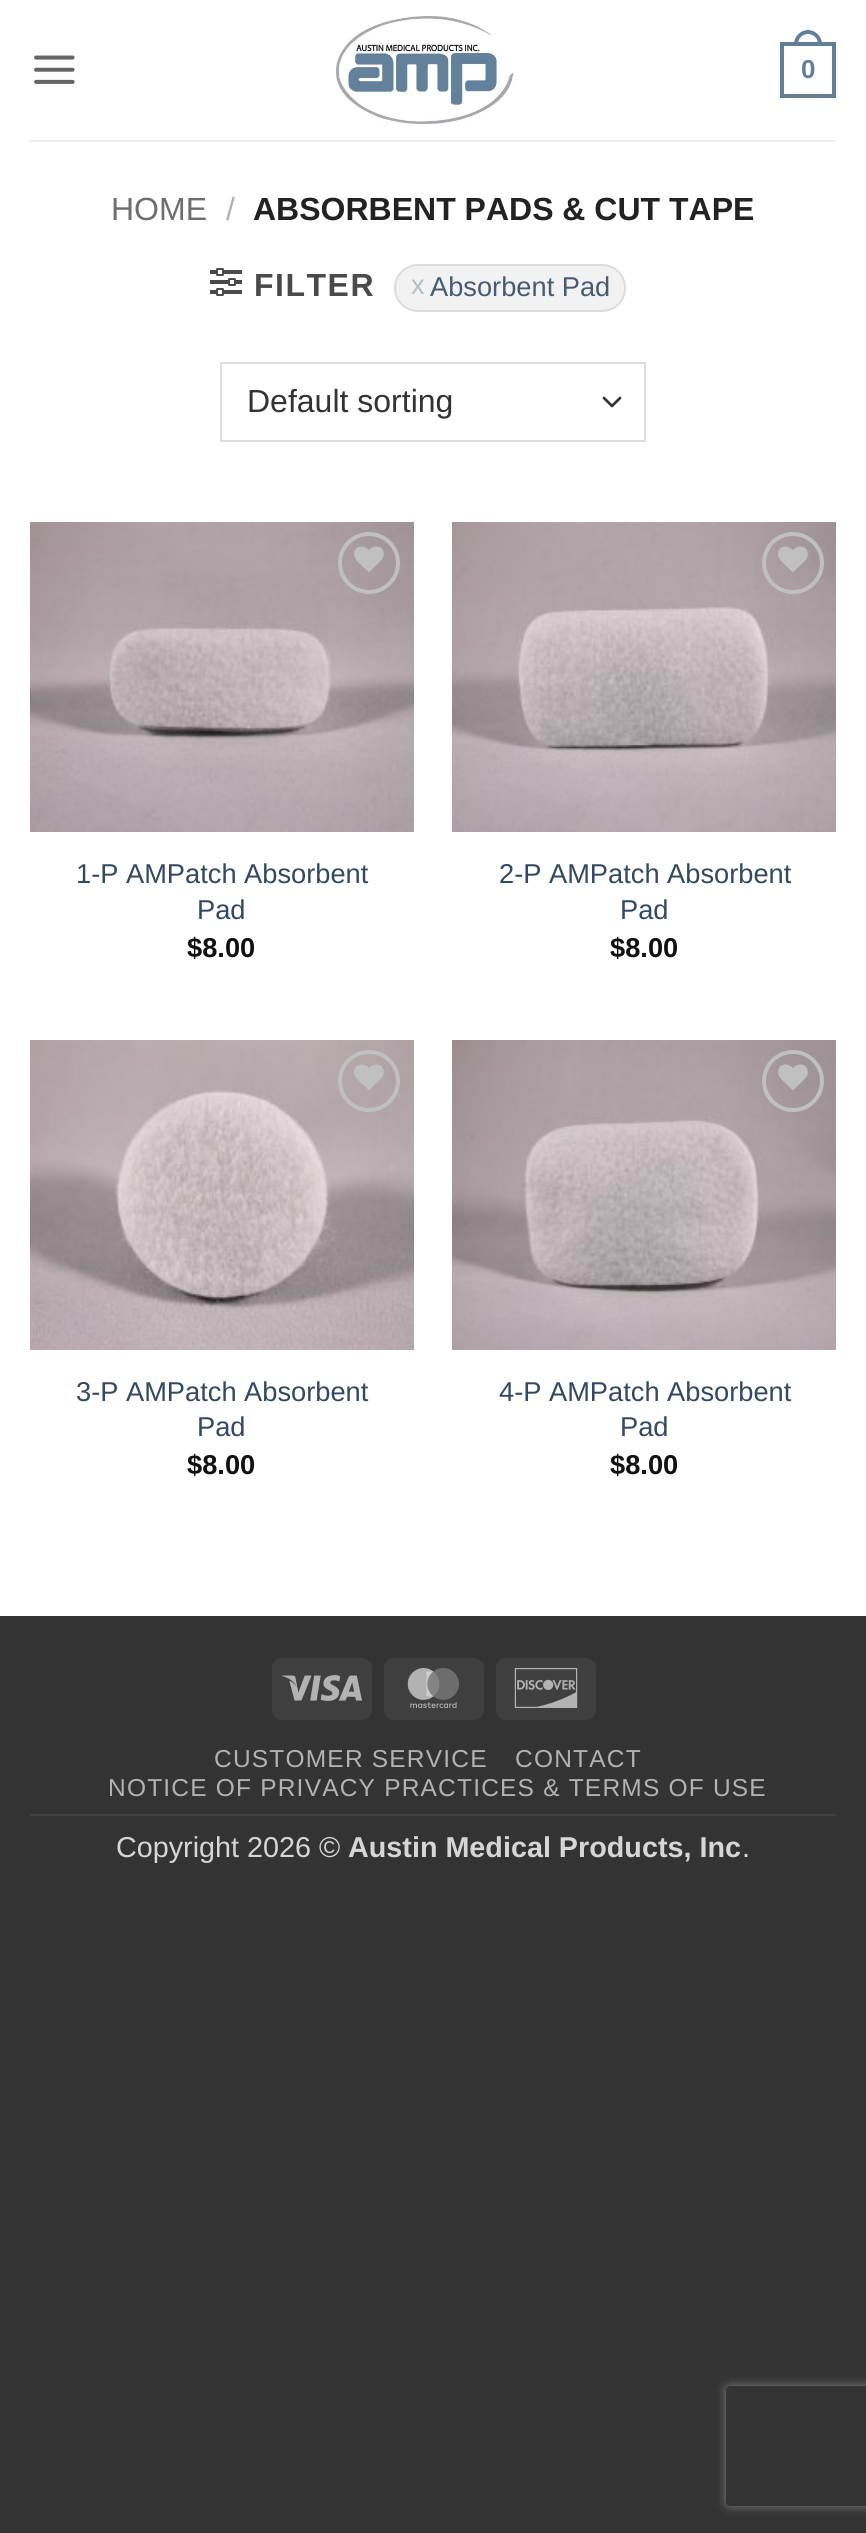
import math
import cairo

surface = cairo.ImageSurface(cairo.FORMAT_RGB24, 866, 2533)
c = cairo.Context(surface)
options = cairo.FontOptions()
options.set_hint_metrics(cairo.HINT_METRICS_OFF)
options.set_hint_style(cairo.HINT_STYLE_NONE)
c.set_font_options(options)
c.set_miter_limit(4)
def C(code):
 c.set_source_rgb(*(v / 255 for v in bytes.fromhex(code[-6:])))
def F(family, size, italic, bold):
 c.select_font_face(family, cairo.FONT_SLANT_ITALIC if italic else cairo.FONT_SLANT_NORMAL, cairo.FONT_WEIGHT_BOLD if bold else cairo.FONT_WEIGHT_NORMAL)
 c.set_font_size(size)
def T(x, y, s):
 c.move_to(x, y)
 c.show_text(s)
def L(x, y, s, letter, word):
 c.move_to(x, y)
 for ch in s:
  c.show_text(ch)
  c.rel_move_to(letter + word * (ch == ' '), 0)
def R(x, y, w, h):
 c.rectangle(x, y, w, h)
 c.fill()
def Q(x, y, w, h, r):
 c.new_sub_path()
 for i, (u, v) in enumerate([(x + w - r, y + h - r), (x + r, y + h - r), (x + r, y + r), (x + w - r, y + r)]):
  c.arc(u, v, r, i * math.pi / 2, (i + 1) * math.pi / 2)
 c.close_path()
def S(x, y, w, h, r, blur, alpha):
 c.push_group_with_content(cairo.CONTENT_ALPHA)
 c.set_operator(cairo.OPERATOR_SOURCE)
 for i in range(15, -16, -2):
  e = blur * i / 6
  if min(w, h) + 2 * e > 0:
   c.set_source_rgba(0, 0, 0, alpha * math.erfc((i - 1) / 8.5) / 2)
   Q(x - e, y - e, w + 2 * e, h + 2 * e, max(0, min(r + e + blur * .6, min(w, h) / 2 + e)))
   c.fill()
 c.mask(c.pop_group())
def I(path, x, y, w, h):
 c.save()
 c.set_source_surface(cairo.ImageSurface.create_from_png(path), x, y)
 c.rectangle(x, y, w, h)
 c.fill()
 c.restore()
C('333333')
c.paint()
C('ffffff')
R(0,0,866,1616)
I('1.png',34,55,41,29)
I('2.png',336,16,178,108)
c.rectangle(782,44,52,52)
C('627f9a')
c.set_line_width(4)
c.stroke()
c.set_fill_rule(cairo.FILL_RULE_EVEN_ODD)
c.new_path()
c.move_to(808,30)
c.curve_to(815.5,30,822,36.5,822,44)
c.line_to(822,46)
c.line_to(794,46)
c.line_to(794,44)
c.curve_to(794,36.5,800.5,30,808,30)
c.close_path()
c.move_to(808,34)
c.curve_to(813.5,34,818,38.5,818,44)
c.line_to(818,46)
c.line_to(798,46)
c.line_to(798,44)
c.curve_to(798,38.5,802.5,34,808,34)
c.close_path()
c.fill()
F('Liberation Sans',26,0,1)
T(801,78,'0')
C('ededed')
R(30,140,806,2)
F('Liberation Sans',32,0,0)
C('6e6e6e')
T(111,220,'HOME')
C('b2b2b2')
T(226,220,'/')
F('Liberation Sans',32,0,1)
C('222222')
T(253,220,'ABSORBENT PADS & CUT TAPE')
I('3.png',210,268,32,28)
C('4a4a4a')
L(254,296,'FILTER',1.5,0)
C('f2f2f2')
Q(394,264,232,48,24)
c.fill()
Q(395,265,230,46,23)
c.set_source_rgba(0.102,0.102,0.102,0.1)
c.set_line_width(2)
c.stroke()
F('Liberation Sans',27.25,0,0)
C('b6bdc6')
T(411,294,'x')
C('475a72')
T(430,296,'Absorbent Pad')
c.new_path()
c.move_to(604,398)
c.line_to(612,406)
c.line_to(620,398)
C('333333')
c.set_line_width(2.7)
c.set_line_cap(cairo.LINE_CAP_ROUND)
c.set_line_join(cairo.LINE_JOIN_ROUND)
c.stroke()
c.rectangle(221,363,424,78)
C('dddddd')
c.set_line_width(2)
c.set_line_cap(cairo.LINE_CAP_BUTT)
c.set_line_join(cairo.LINE_JOIN_MITER)
c.stroke()
F('Liberation Sans',32,0,0)
C('333333')
T(247,412,'Default sorting')
I('4.png',30,522,384,310)
c.arc(369,563,29,0,2 * math.pi)
C('c0c0c0')
c.set_line_width(4)
c.stroke()
I('5.png',354,546,30,26)
F('Liberation Sans',27.25,0,0)
C('334862')
T(76,883,'1-P AMPatch Absorbent')
T(197,919,'Pad')
F('Liberation Sans',27.25,0,1)
C('111111')
T(187,957,'$8.00')
I('6.png',452,522,384,310)
c.arc(793,563,29,0,2 * math.pi)
C('c0c0c0')
c.stroke()
I('7.png',778,546,30,26)
F('Liberation Sans',27.25,0,0)
C('334862')
T(499,883,'2-P AMPatch Absorbent')
T(620,919,'Pad')
F('Liberation Sans',27.25,0,1)
C('111111')
T(610,957,'$8.00')
I('8.png',30,1040,384,310)
c.arc(369,1081,29,0,2 * math.pi)
C('c0c0c0')
c.stroke()
I('9.png',354,1064,30,26)
F('Liberation Sans',27.25,0,0)
C('334862')
T(76,1401,'3-P AMPatch Absorbent')
T(197,1436,'Pad')
F('Liberation Sans',27.25,0,1)
C('111111')
T(187,1474,'$8.00')
I('10.png',452,1040,384,310)
c.arc(793,1081,29,0,2 * math.pi)
C('c0c0c0')
c.stroke()
I('11.png',778,1064,30,26)
F('Liberation Sans',27.25,0,0)
C('334862')
T(499,1401,'4-P AMPatch Absorbent')
T(620,1436,'Pad')
F('Liberation Sans',27.25,0,1)
C('111111')
T(610,1474,'$8.00')
C('3f3f3f')
Q(272,1658,100,62,10)
c.fill()
I('12.png',282,1675,80,26)
Q(384,1658,100,62,10)
c.fill()
I('13.png',407,1668,52,40)
Q(496,1658,100,62,10)
c.fill()
I('14.png',514,1668,64,40)
C('404040')
R(30,1814,806,2)
F('Liberation Sans',24.5,0,0)
C('b2b2b2')
L(214,1767,'CUSTOMER SERVICE',1.2,0)
L(515,1767,'CONTACT',1.2,0)
L(108,1796,'NOTICE OF PRIVACY PRACTICES & TERMS OF USE',1.2,0)
F('Liberation Sans',28.75,0,0)
C('d6d6d6')
T(116,1857,'Copyright 2026 ©')
F('Liberation Sans',28.75,0,1)
T(348,1857,'Austin Medical Products, Inc')
F('Liberation Sans',28.75,0,0)
T(742,1857,'.')
c.save()
c.new_path()
c.move_to(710,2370)
c.line_to(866,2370)
c.line_to(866,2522)
c.line_to(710,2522)
c.close_path()
c.move_to(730,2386)
c.line_to(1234,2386)
c.curve_to(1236,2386,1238,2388,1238,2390)
c.line_to(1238,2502)
c.curve_to(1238,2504,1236,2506,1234,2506)
c.line_to(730,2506)
c.curve_to(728,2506,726,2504,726,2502)
c.line_to(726,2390)
c.curve_to(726,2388,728,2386,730,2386)
c.close_path()
c.clip()
C('808080')
S(726,2386,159,120,4,5,1)
c.restore()
surface.write_to_png('o.png')
